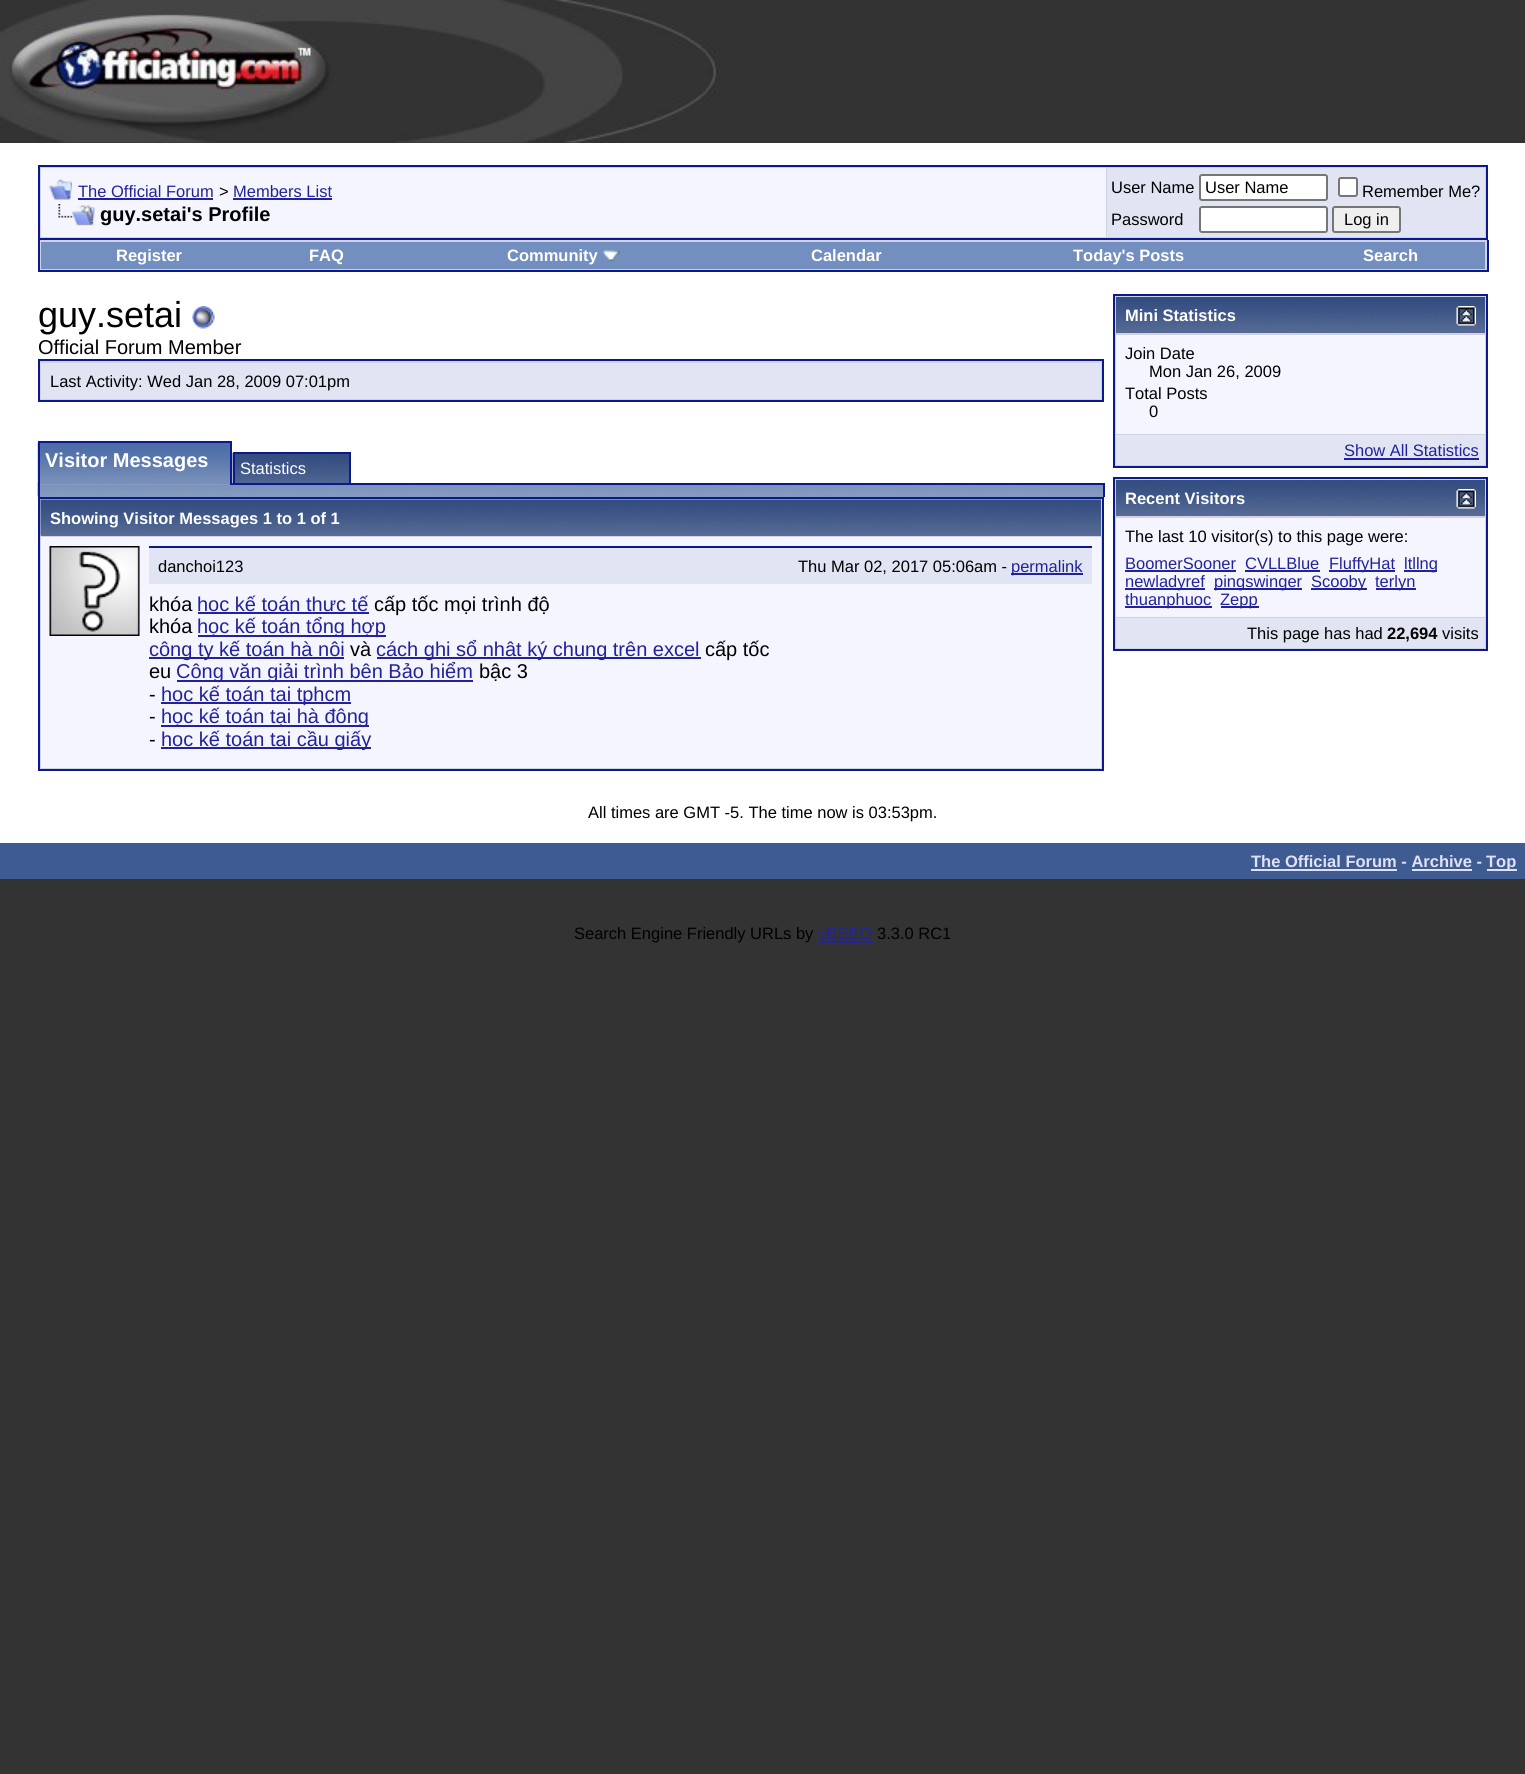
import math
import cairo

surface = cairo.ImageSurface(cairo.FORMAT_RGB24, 1525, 1774)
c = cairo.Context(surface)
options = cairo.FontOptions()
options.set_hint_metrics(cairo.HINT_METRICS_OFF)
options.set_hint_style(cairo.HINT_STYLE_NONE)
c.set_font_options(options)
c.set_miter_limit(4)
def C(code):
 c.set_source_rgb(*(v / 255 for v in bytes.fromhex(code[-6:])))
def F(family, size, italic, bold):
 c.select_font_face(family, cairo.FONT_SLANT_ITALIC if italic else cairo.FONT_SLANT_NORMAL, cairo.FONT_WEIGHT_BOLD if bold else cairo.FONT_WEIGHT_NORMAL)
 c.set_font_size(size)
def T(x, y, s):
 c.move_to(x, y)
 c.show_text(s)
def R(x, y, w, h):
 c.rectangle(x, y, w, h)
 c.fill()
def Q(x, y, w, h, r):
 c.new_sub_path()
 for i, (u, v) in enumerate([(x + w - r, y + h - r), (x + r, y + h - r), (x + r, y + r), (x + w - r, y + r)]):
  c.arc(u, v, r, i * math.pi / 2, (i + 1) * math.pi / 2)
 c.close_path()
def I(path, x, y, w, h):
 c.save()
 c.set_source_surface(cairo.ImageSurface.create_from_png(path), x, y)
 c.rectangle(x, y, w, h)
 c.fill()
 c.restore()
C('333333')
c.paint()
I('1.png',0,0,720,143)
C('ffffff')
R(0,143,1525,700)
C('d1d1e1')
c.rectangle(39,166,1448,73)
c.fill_preserve()
C('0b198c')
c.stroke()
C('f5f5ff')
R(41,168,1065,69)
I('2.png',49,179,23,21)
F('Liberation Sans',16.5,0,0)
C('22229c')
T(78,197,'The Official Forum')
R(78,198,135,2)
C('000000')
T(219,197,'>')
C('22229c')
T(233,197,'Members List')
R(233,198,99,2)
I('3.png',58,204,37,22)
F('Liberation Sans',20,0,1)
C('000000')
T(100,221,'guy.setai\'s Profile')
C('e1e4f2')
R(1107,168,378,69)
F('Liberation Sans',16.5,0,0)
C('000000')
T(1111,193,'User Name')
C('ffffff')
Q(1200,175,127,25,2)
c.fill_preserve()
C('767676')
c.stroke()
C('000000')
T(1205,193,'User Name')
C('ffffff')
Q(1339,178,18,18,2)
c.fill_preserve()
C('767676')
c.stroke()
C('000000')
T(1362,197,'Remember Me?')
T(1111,225,'Password')
C('ffffff')
Q(1200,207,127,25,2)
c.fill_preserve()
C('767676')
c.stroke()
C('efefef')
Q(1333,207,67,25,2)
c.fill_preserve()
C('767676')
c.stroke()
C('000000')
T(1344,225,'Log in')
C('d1d1e1')
R(40,240,1447,30)
C('0b198c')
R(1487,240,2,32)
R(38,270,1450,2)
R(38,240,2,32)
C('738fbf')
R(41,242,1444,27)
F('Liberation Sans',16.5,0,1)
C('ffffff')
T(116,261,'Register')
T(309,261,'FAQ')
T(507,261,'Community')
I('4.png',603,250,17,11)
T(811,261,'Calendar')
T(1073,261,'Today\'s Posts')
T(1363,261,'Search')
F('Liberation Sans',36,0,0)
C('000000')
T(38,327,'guy.setai')
I('5.png',192,306,23,23)
F('Liberation Sans',20,0,0)
T(38,354,'Official Forum Member')
C('d1d1e1')
c.rectangle(39,360,1064,41)
c.fill_preserve()
C('0b198c')
c.stroke()
C('e1e4f2')
R(41,363,1060,36)
F('Liberation Sans',16.5,0,0)
C('000000')
T(50,387,'Last Activity: Wed Jan 28, 2009 07:01pm')
C('869bbf')
R(40,496,1063,1)
I('8.png',37,483,1066,14)
R(40,484,190,1)
C('0b198c')
R(38,483,2,14)
I('6.png',37,442,193,42)
R(38,441,193,2)
R(230,441,2,44)
R(38,441,2,44)
F('Liberation Sans',20,0,1)
C('ffffff')
T(45,467,'Visitor Messages')
C('0b198c')
R(232,483,872,2)
I('7.png',232,453,117,32)
c.rectangle(234,453,116,31)
c.stroke()
F('Liberation Sans',16.5,0,0)
C('ffffff')
T(240,474,'Statistics')
C('0b198c')
R(1103,483,2,14)
C('d1d1e1')
c.rectangle(39,498,1064,272)
c.fill_preserve()
C('0b198c')
c.stroke()
C('5c7099')
R(41,535,1060,1)
I('9.png',40,499,1061,37)
F('Liberation Sans',16.5,0,1)
C('ffffff')
T(50,524,'Showing Visitor Messages 1 to 1 of 1')
C('f5f5ff')
R(41,537,1060,231)
C('e1e4f2')
R(139,546,1,90)
I('10.png',49,546,91,90)
C('0b198c')
R(149,546,943,2)
C('e1e4f2')
R(149,548,943,36)
F('Liberation Sans',16.5,0,0)
C('000000')
T(158,572,'danchoi123')
T(798,572,'Thu Mar 02, 2017 05:06am -')
C('22229c')
R(1011,573,72,2)
T(1011,572,'permalink')
F('Liberation Sans',20,0,0)
C('000000')
T(149,611,'khóa')
C('22229c')
R(198,612,171,2)
T(197,611,'học kế toán thực tế')
C('000000')
T(374,611,'cấp tốc mọi trình độ')
T(149,633,'khóa')
C('22229c')
R(198,635,188,2)
T(197,633,'học kế toán tổng hợp')
R(149,657,195,2)
T(149,656,'công ty kế toán hà nội')
C('000000')
T(350,656,'và')
C('22229c')
R(377,657,324,2)
T(376,656,'cách ghi sổ nhật ký chung trên excel')
C('000000')
T(705,656,'cấp tốc')
T(149,678,'eu')
C('22229c')
R(177,680,296,2)
T(176,678,'Công văn giải trình bên Bảo hiểm')
C('000000')
T(479,678,'bậc 3')
T(149,701,'-')
C('22229c')
R(161,702,190,2)
T(161,701,'học kế toán tại tphcm')
C('000000')
T(149,723,'-')
C('22229c')
R(161,725,208,2)
T(161,723,'học kế toán tại hà đông')
C('000000')
T(149,746,'-')
C('22229c')
R(161,747,210,2)
c.save()
c.rectangle(149,593,943,157)
c.clip()
T(161,746,'học kế toán tại cầu giấy')
c.restore()
C('d1d1e1')
c.rectangle(1114,295,373,172)
c.fill_preserve()
C('0b198c')
c.stroke()
I('11.png',1116,297,369,36)
F('Liberation Sans',16.5,0,1)
C('ffffff')
T(1125,321,'Mini Statistics')
I('12.png',1456,306,20,20)
C('f5f5ff')
R(1116,335,369,99)
F('Liberation Sans',16.5,0,0)
C('000000')
T(1125,359,'Join Date')
T(1149,377,'Mon Jan 26, 2009')
T(1125,399,'Total Posts')
T(1149,417,'0')
C('e1e4f2')
R(1116,435,369,30)
C('22229c')
T(1344,456,'Show All Statistics')
R(1344,458,135,2)
C('d1d1e1')
c.rectangle(1114,478,373,172)
c.fill_preserve()
C('0b198c')
c.stroke()
I('13.png',1116,480,369,36)
F('Liberation Sans',16.5,0,1)
C('ffffff')
T(1125,504,'Recent Visitors')
I('12.png',1456,489,20,20)
C('f5f5ff')
R(1116,518,369,99)
F('Liberation Sans',16.5,0,0)
C('000000')
T(1125,542,'The last 10 visitor(s) to this page were:')
C('22229c')
T(1125,569,'BoomerSooner')
R(1125,570,111,2)
T(1245,569,'CVLLBlue')
R(1245,570,75,2)
R(1329,570,66,2)
T(1329,569,'FluffyHat')
R(1404,570,33,2)
T(1404,569,'ltllng')
R(1125,588,80,2)
T(1125,587,'newladyref')
R(1214,588,88,2)
T(1214,587,'pingswinger')
R(1311,588,56,2)
T(1311,587,'Scooby')
R(1376,588,40,2)
T(1375,587,'terlyn')
R(1125,606,87,2)
T(1125,605,'thuanphuoc')
R(1221,606,38,2)
T(1220,605,'Zepp')
C('e1e4f2')
R(1116,618,369,30)
C('000000')
T(1247,639,'This page has had')
F('Liberation Sans',16.5,0,1)
T(1387,639,'22,694')
F('Liberation Sans',16.5,0,0)
T(1442,639,'visits')
T(588,818,'All times are GMT -5. The time now is 03:53pm.')
C('3e5c92')
R(0,843,1525,36)
F('Liberation Sans',16.5,0,1)
C('e0e0f6')
T(1251,867,'The Official Forum - Archive -')
R(1251,869,146,2)
R(1412,869,60,2)
R(1487,869,30,2)
T(1486,867,'Top')
F('Liberation Sans',16.5,0,0)
C('000000')
T(574,939,'Search Engine Friendly URLs by')
C('22229c')
T(818,939,'vBSEO')
R(818,941,55,2)
C('000000')
T(877,939,'3.3.0 RC1')
surface.write_to_png('o.png')
